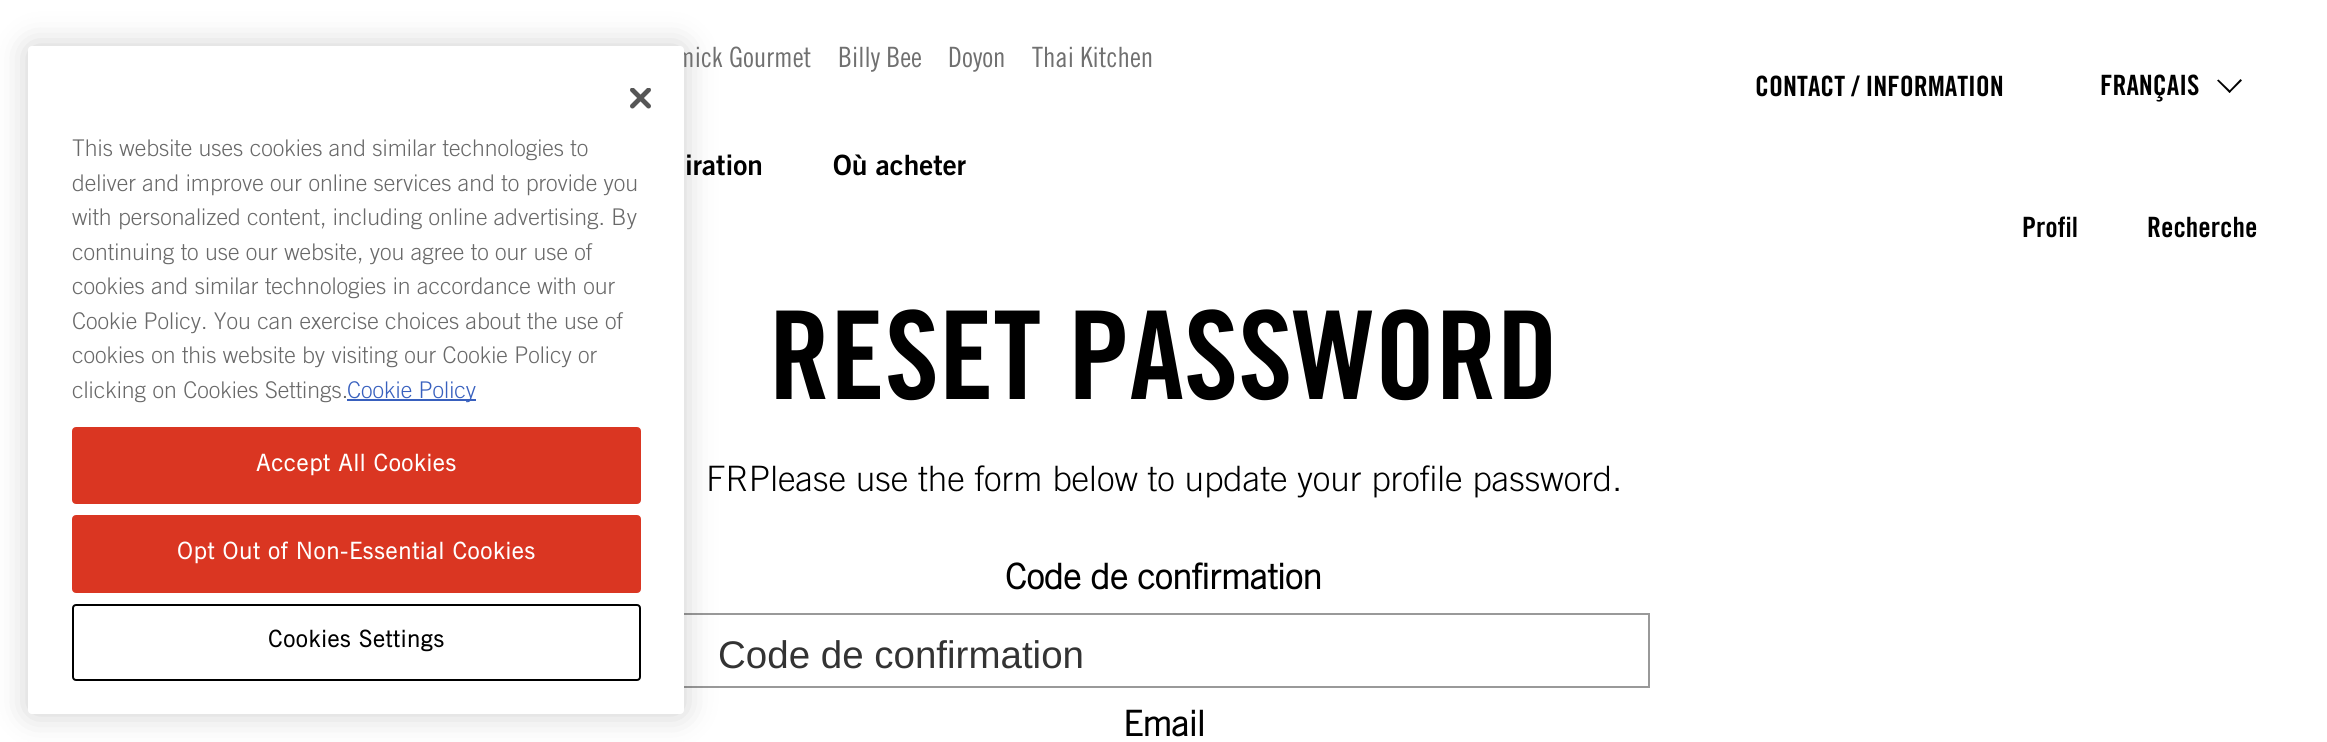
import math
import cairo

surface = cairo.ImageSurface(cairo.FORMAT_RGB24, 2327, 742)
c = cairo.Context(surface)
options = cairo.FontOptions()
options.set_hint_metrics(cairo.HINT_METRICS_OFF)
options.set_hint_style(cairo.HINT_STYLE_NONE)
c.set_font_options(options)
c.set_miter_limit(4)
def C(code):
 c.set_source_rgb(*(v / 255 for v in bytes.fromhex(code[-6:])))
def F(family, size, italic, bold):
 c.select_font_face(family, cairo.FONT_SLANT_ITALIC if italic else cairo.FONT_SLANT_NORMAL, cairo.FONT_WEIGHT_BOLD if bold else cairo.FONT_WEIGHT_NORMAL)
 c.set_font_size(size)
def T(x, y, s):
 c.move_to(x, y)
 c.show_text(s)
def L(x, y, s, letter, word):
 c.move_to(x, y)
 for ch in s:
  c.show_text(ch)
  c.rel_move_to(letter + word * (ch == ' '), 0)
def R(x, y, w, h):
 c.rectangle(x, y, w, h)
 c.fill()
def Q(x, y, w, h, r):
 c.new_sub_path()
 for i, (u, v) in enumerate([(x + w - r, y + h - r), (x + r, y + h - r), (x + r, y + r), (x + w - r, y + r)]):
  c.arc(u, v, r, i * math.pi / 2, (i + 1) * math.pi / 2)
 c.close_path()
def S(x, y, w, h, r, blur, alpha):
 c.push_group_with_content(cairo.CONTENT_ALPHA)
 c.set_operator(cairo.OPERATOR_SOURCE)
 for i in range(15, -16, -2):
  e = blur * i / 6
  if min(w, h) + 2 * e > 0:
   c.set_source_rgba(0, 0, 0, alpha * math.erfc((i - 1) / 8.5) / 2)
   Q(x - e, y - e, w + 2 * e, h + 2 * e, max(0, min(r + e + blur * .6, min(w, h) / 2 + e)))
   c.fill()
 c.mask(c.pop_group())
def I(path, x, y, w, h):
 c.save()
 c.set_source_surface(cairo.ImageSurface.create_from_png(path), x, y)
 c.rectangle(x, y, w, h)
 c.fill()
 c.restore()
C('ffffff')
c.paint()
c.rectangle(680,614,969,73)
C('999999')
c.stroke()
C('000000')
S(28,46,656,668,4,16,.2)
F('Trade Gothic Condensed',28,0,0)
C('707070')
T(676,67,'mick Gourmet')
C('ffffff')
Q(28,46,656,668,4)
c.fill()
I('1.png',630,88,21,21)
F('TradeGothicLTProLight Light',23,0,0)
C('696969')
T(72,156,'This website uses cookies and similar technologies to')
T(72,191,'deliver and improve our online services and to provide you')
T(72,225,'with personalized content, including online advertising. By')
T(72,260,'continuing to use our website, you agree to our use of')
T(72,294,'cookies and similar technologies in accordance with our')
T(72,329,'Cookie Policy. You can exercise choices about the use of')
T(72,363,'cookies on this website by visiting our Cookie Policy or')
T(72,398,'clicking on Cookies Settings.')
C('3860be')
R(347,399,129,2)
T(347,398,'Cookie Policy')
C('da3622')
Q(73,428,567,75,3)
c.fill_preserve()
c.stroke()
F('TradeGothicLTProLight',23,0,1)
C('ffffff')
L(256,471,'Accept All Cookies',1.15,0)
C('da3622')
Q(73,516,567,76,3)
c.fill_preserve()
c.stroke()
C('ffffff')
L(177,559,'Opt Out of Non-Essential Cookies',1.15,0)
Q(73,605,567,75,3)
C('000000')
c.stroke()
L(268,647,'Cookies Settings',1.15,0)
F('Trade Gothic Condensed',28,0,0)
C('707070')
T(838,67,'Billy Bee')
T(948,67,'Doyon')
T(1032,67,'Thai Kitchen')
F('Trade Gothic',28,0,1)
C('000000')
T(685,175,'iration')
T(833,175,'Où acheter')
F('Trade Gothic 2',28,0,1)
T(1755,96,'CONTACT / INFORMATION')
T(2100,95,'FRANÇAIS')
c.new_path()
c.move_to(2242,80.5)
c.line_to(2229.5,93)
c.line_to(2228.5,91.5)
c.line_to(2240.5,79)
c.close_path()
c.fill()
c.new_path()
c.move_to(2231,91.5)
c.line_to(2229.5,93)
c.line_to(2217,80.5)
c.line_to(2218.5,79.5)
c.close_path()
c.fill()
T(2022,237,'Profil')
T(2147,237,'Recherche')
F('Trade Gothic 2',122.5,0,1)
T(769,399,'RESET PASSWORD')
F('TradeGothicLTProLight Light',35,0,0)
T(706,491,'FRPlease use the form below to update your profile password.')
F('TradeGothicLTProLight',35,0,1)
T(1005,589,'Code de confirmation')
F('Liberation Sans',38.5,0,0)
C('333333')
T(718,668,'Code de confirmation')
F('TradeGothicLTProLight',35,0,1)
C('000000')
T(1123,736,'Email')
surface.write_to_png('o.png')
